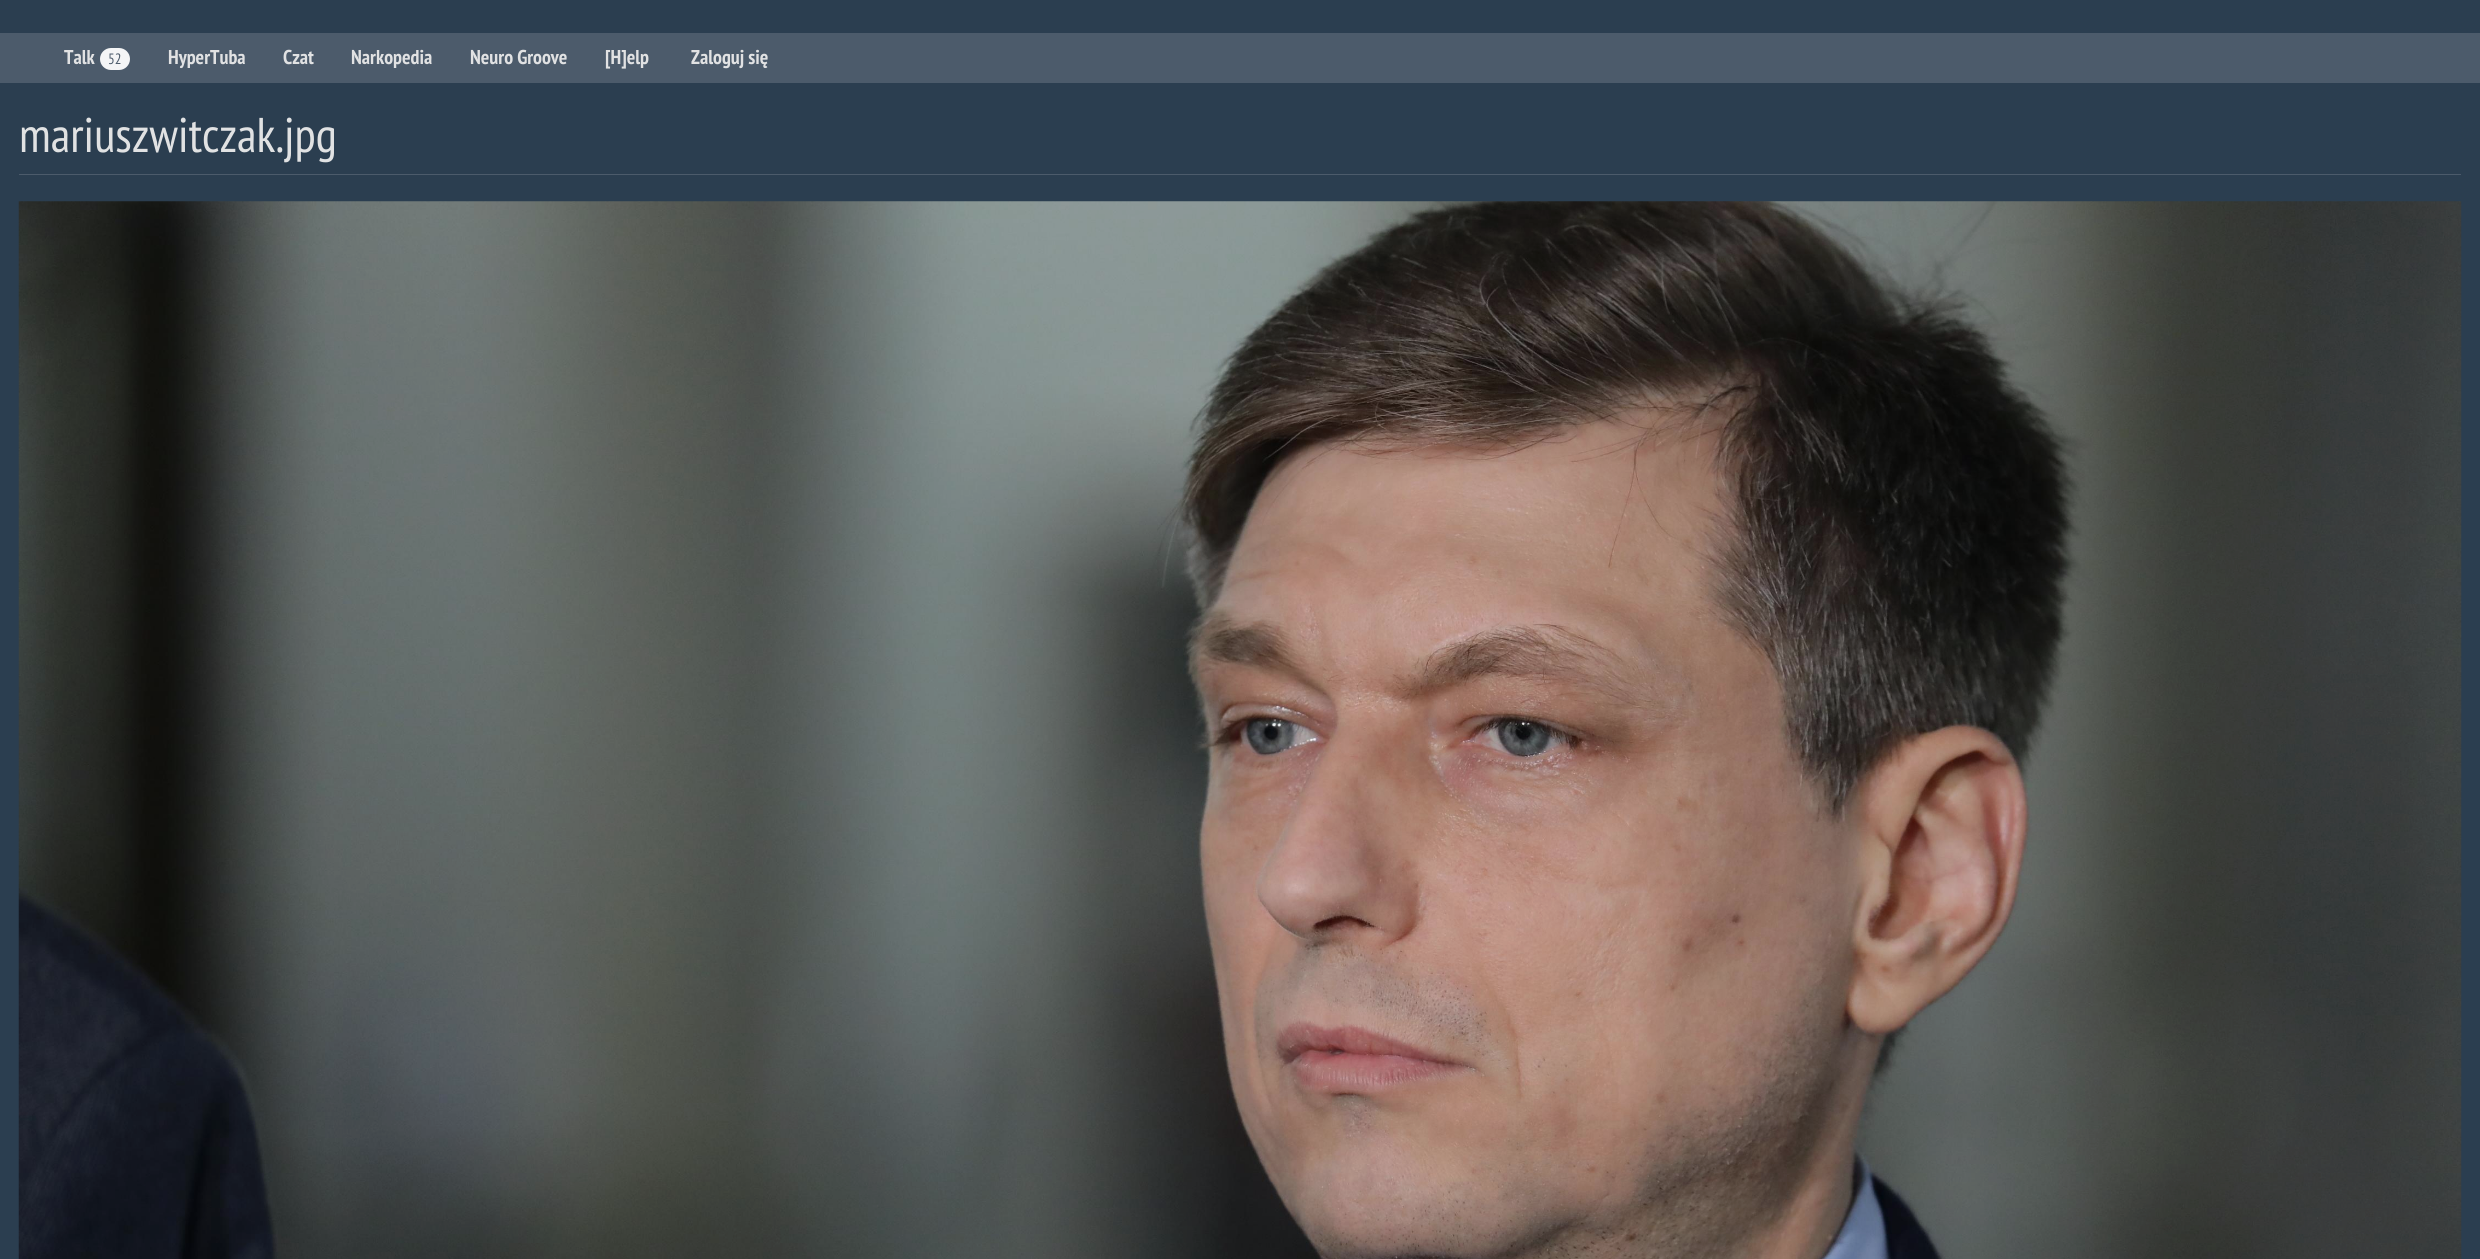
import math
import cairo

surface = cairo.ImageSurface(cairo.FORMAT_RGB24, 2480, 1259)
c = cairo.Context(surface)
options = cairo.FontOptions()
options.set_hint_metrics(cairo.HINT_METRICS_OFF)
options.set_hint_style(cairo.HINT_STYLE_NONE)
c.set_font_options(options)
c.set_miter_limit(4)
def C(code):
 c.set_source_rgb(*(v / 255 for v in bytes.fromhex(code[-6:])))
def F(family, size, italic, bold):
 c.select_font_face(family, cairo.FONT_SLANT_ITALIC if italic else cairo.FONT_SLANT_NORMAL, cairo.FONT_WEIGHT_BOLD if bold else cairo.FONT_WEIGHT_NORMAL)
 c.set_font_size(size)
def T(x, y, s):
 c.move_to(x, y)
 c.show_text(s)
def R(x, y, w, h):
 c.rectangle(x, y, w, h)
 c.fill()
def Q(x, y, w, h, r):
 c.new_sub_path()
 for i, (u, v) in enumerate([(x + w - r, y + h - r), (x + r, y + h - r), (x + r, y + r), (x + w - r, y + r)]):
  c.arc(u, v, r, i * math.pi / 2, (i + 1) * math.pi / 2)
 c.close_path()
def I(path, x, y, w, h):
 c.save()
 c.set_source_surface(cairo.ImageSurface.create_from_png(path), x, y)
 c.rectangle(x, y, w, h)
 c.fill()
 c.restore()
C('2b3e50')
c.paint()
C('4c5b6b')
R(0,33,2480,50)
F('PT Sans Narrow',20,0,1)
C('e1e2e3')
T(64,64,'Talk')
C('f4f5f6')
Q(100,48,30,22,11)
c.fill()
F('PT Sans Narrow',15,0,0)
C('4c5b6b')
T(108,64,'52')
F('PT Sans Narrow',20,0,1)
C('e1e2e3')
T(168,64,'HyperTuba')
T(283,64,'Czat')
T(351,64,'Narkopedia')
T(470,64,'Neuro Groove')
T(605,64,'[H]elp')
T(691,64,'Zaloguj się')
C('4c5b6b')
R(19,174,2442,1)
F('PT Sans Narrow',48.75,0,0)
C('e1e2e3')
T(19,152,'mariuszwitczak.jpg')
I('1.png',18,201,2444,1058)
surface.write_to_png('o.png')
